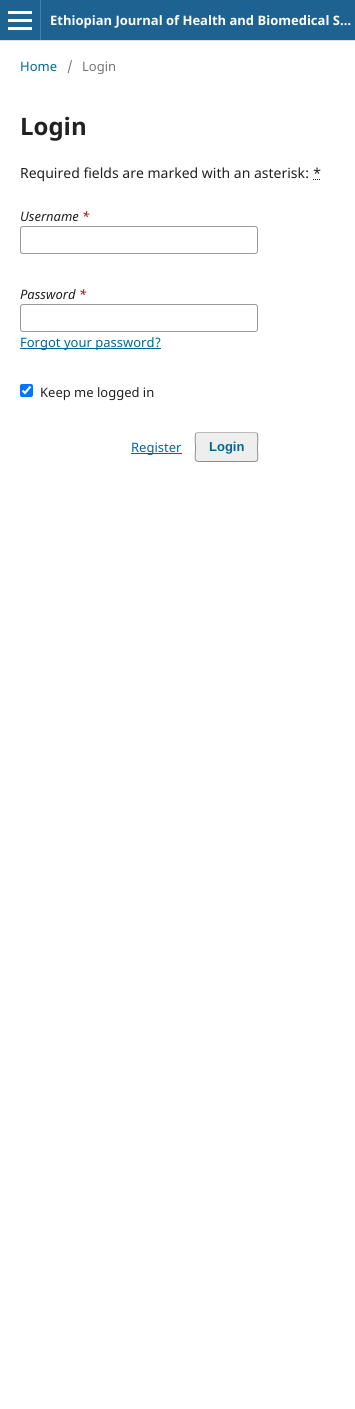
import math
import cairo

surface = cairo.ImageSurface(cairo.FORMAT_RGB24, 355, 1409)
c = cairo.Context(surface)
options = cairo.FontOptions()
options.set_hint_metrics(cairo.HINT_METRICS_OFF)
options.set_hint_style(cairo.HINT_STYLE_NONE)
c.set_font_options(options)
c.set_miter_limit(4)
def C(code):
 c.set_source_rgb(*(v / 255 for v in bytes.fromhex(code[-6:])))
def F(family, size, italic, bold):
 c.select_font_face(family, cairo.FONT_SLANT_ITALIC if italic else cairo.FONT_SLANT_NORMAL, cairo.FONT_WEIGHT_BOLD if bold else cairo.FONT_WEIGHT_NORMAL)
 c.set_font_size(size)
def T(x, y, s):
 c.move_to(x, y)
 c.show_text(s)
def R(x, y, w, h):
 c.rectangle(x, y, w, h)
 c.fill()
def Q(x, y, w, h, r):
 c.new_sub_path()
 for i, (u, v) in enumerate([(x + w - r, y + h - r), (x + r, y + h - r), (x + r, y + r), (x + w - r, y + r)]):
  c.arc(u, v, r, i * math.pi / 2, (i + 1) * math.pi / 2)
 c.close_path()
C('ffffff')
c.paint()
C('1e6292')
R(0,0,355,40)
C('dddddd')
R(0,40,355,1)
C('4b81a8')
R(40,0,1,40)
C('ffffff')
R(8,27,24,3)
R(8,11,24,3)
R(8,19,24,3)
F('Noto Sans',13,0,1)
T(50,25,'Ethiopian Journal of Health and Biomedical S…')
F('Noto Sans',13,0,0)
C('006798')
T(20,71,'Home')
C('757575')
T(67,71,'/')
T(82,71,'Login')
F('Noto Sans',24,0,1)
C('212121')
T(20,135,'Login')
F('Noto Sans',14,0,0)
T(20,178,'Required fields are marked with an asterisk: *')
c.new_path()
c.move_to(313,179.5)
c.line_to(321,179.5)
c.set_line_width(1)
c.set_dash([1,1])
c.stroke()
F('Noto Sans',13,1,0)
T(20,221,'Username')
C('a80000')
T(82,221,'*')
Q(20.5,226.5,237,27,2.5)
C('999999')
c.set_dash([])
c.stroke()
C('212121')
T(20,299,'Password')
C('a80000')
T(79,299,'*')
Q(20.5,304.5,237,27,2.5)
C('999999')
c.stroke()
C('006798')
R(20,348,141,1)
F('Noto Sans',13,0,0)
T(20,347,'Forgot your password?')
C('0075ff')
Q(20,384,13,13,2)
c.fill()
c.new_path()
c.move_to(22.5,390.5)
c.line_to(25,393)
c.line_to(30.5,386.5)
C('ffffff')
c.set_line_width(2.1)
c.stroke()
C('212121')
T(40,397,'Keep me logged in')
C('006798')
R(131,453,51,1)
T(131,452,'Register')
C('eeeeee')
Q(195,432,63,30,3)
c.fill()
c.new_path()
c.move_to(196,433)
c.line_to(198,432.5)
c.line_to(255,432.5)
c.line_to(257,433)
C('bbbbbb')
c.set_line_width(1)
c.stroke()
c.new_path()
c.move_to(257,433)
c.curve_to(258.5,435,257.5,444.5,257.5,447)
c.curve_to(257.5,463,261,461.5,245.5,461.5)
c.line_to(207.5,461.5)
c.curve_to(192,461.5,195.5,463,195.5,447)
c.curve_to(195.5,444.5,194.5,435,196,433)
c.set_source_rgba(0,0,0,0.4)
c.stroke()
F('Liberation Sans',13,0,1)
C('006798')
T(209,451,'Login')
surface.write_to_png('o.png')
